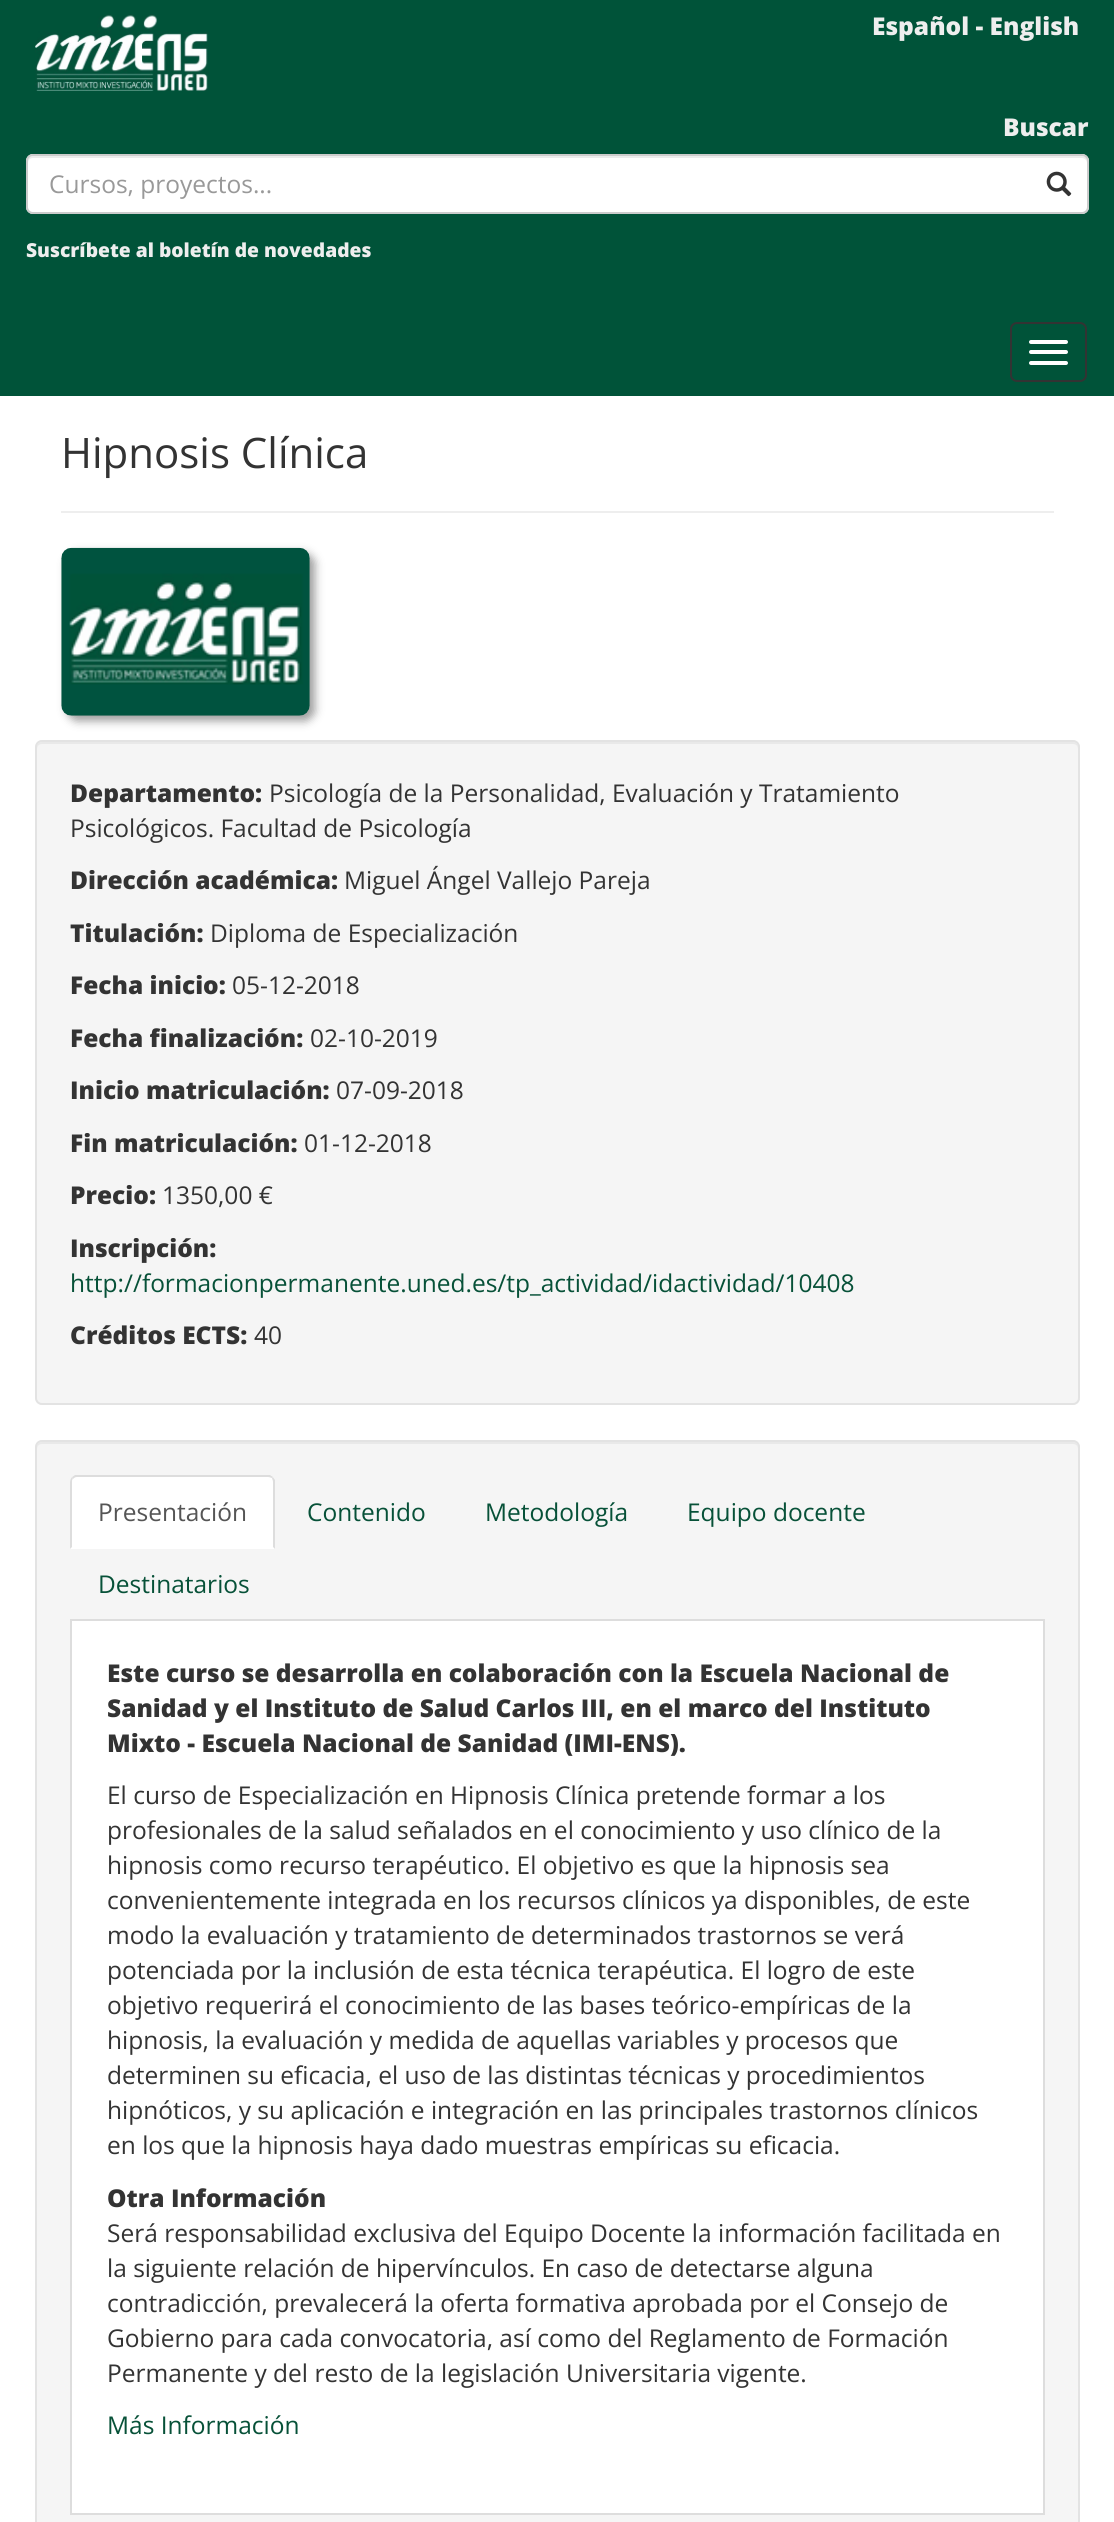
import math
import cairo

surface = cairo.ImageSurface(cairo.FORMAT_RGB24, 1114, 2522)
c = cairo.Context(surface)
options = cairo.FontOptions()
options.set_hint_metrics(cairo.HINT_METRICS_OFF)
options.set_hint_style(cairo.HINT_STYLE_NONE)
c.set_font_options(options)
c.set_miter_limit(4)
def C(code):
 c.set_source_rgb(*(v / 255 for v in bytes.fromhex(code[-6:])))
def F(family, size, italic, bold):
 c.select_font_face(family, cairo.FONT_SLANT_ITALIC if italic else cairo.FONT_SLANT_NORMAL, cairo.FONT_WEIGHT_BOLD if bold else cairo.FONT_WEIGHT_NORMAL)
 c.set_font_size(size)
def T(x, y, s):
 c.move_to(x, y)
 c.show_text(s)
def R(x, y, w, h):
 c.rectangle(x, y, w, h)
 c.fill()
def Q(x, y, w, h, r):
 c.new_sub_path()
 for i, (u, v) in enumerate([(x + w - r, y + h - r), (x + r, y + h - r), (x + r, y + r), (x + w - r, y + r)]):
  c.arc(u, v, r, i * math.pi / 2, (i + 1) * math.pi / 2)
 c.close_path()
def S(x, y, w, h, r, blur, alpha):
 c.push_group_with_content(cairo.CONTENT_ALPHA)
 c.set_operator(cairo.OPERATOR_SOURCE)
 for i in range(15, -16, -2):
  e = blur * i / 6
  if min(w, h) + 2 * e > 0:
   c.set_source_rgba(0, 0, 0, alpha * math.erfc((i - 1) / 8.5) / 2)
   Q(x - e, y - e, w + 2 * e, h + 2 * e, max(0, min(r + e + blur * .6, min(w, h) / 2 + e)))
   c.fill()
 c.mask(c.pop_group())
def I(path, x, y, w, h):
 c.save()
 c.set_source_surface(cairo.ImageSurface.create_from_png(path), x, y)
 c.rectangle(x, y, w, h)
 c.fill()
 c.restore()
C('ffffff')
c.paint()
C('005339')
R(0,0,1114,396)
I('1.png',35,14,174,77)
F('Open Sans ExtraBold',24.5,0,0)
C('eeeeee')
T(872,35,'Español - English')
T(1003,136,'Buscar')
C('ffffff')
Q(26,154,1063,60,7)
c.fill()
C('ececec')
c.new_path()
c.move_to(33,158)
c.line_to(1082,158)
c.curve_to(1084,158,1087,160,1087,163)
c.line_to(1087,161)
c.curve_to(1087,158,1085,156,1082,156)
c.line_to(33,156)
c.curve_to(30,156,28,158,28,161)
c.line_to(28,163)
c.curve_to(28,160,30,158,33,158)
c.close_path()
c.fill()
Q(27,155,1061,58,6)
C('cccccc')
c.stroke()
F('Open Sans',24.5,0,0)
C('999999')
T(49,193,'Cursos, proyectos...')
I('2.png',1046,171,26,26)
F('Open Sans ExtraBold',19.25,0,0)
C('eeeeee')
T(26,257,'Suscríbete al boletín de novedades')
Q(1011,323,75,58,6)
C('333333')
c.stroke()
C('ffffff')
Q(1029,340,39,4,2)
c.fill()
Q(1029,350,39,4,2)
c.fill()
Q(1029,361,39,4,2)
c.fill()
F('Open Sans',42,0,0)
C('333333')
T(61,468,'Hipnosis Clínica')
C('eeeeee')
R(61,511,993,2)
C('9e9e9e')
S(67,553,248,168,11,4.5,1)
I('3.png',61,547,249,169)
C('f5f5f5')
Q(35,740,1045,665,7)
c.fill()
C('e9e9e9')
c.new_path()
c.move_to(42,744)
c.line_to(1073,744)
c.curve_to(1076,744,1078,746,1078,749)
c.line_to(1078,747)
c.curve_to(1078,744,1076,742,1073,742)
c.line_to(42,742)
c.curve_to(39,742,37,744,37,747)
c.line_to(37,749)
c.curve_to(37,746,39,744,42,744)
c.close_path()
c.fill()
Q(36,741,1043,663,6)
C('e3e3e3')
c.stroke()
F('Open Sans ExtraBold',24.5,0,0)
C('333333')
T(70,802,'Departamento:')
F('Open Sans',24.5,0,0)
T(269,802,'Psicología de la Personalidad, Evaluación y Tratamiento')
T(70,837,'Psicológicos. Facultad de Psicología')
F('Open Sans ExtraBold',24.5,0,0)
T(70,889,'Dirección académica:')
F('Open Sans',24.5,0,0)
T(344,889,'Miguel Ángel Vallejo Pareja')
F('Open Sans ExtraBold',24.5,0,0)
T(70,942,'Titulación:')
F('Open Sans',24.5,0,0)
T(210,942,'Diploma de Especialización')
F('Open Sans ExtraBold',24.5,0,0)
T(70,994,'Fecha inicio:')
F('Open Sans',24.5,0,0)
T(232,994,'05-12-2018')
F('Open Sans ExtraBold',24.5,0,0)
T(70,1047,'Fecha finalización:')
F('Open Sans',24.5,0,0)
T(310,1047,'02-10-2019')
F('Open Sans ExtraBold',24.5,0,0)
T(70,1099,'Inicio matriculación:')
F('Open Sans',24.5,0,0)
T(336,1099,'07-09-2018')
F('Open Sans ExtraBold',24.5,0,0)
T(70,1152,'Fin matriculación:')
F('Open Sans',24.5,0,0)
T(304,1152,'01-12-2018')
F('Open Sans ExtraBold',24.5,0,0)
T(70,1204,'Precio:')
F('Open Sans',24.5,0,0)
T(162,1204,'1350,00 €')
F('Open Sans ExtraBold',24.5,0,0)
T(70,1257,'Inscripción:')
F('Open Sans',24.5,0,0)
C('075138')
T(70,1292,'http://formacionpermanente.uned.es/tp_actividad/idactividad/10408')
F('Open Sans ExtraBold',24.5,0,0)
C('333333')
T(70,1344,'Créditos ECTS:')
F('Open Sans',24.5,0,0)
T(254,1344,'40')
C('f5f5f5')
Q(35,1440,1045,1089,7)
c.fill()
C('e9e9e9')
c.new_path()
c.move_to(42,1444)
c.line_to(1073,1444)
c.curve_to(1076,1444,1078,1446,1078,1449)
c.line_to(1078,1447)
c.curve_to(1078,1444,1076,1442,1073,1442)
c.line_to(42,1442)
c.curve_to(39,1442,37,1444,37,1447)
c.line_to(37,1449)
c.curve_to(37,1446,39,1444,42,1444)
c.close_path()
c.fill()
Q(36,1441,1043,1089,6)
C('e3e3e3')
c.stroke()
C('dddddd')
R(70,1619,975,2)
C('ffffff')
c.new_path()
c.move_to(77,1475)
c.line_to(268,1475)
c.curve_to(272,1475,275,1478,275,1482)
c.line_to(275,1549)
c.line_to(70,1549)
c.line_to(70,1482)
c.curve_to(70,1478,73,1475,77,1475)
c.close_path()
c.fill()
C('dddddd')
c.new_path()
c.move_to(77,1477)
c.curve_to(75,1477,74,1478,73,1479)
c.line_to(72,1477)
c.line_to(75,1475)
c.line_to(270,1475)
c.line_to(273,1477)
c.line_to(272,1478)
c.curve_to(271,1478,270,1477,268,1477)
c.close_path()
c.fill()
c.new_path()
c.move_to(273,1477)
c.line_to(275,1480)
c.line_to(275,1549)
c.line_to(273,1547)
c.line_to(273,1482)
c.curve_to(273,1480,272,1479,272,1478)
c.close_path()
c.fill()
c.new_path()
c.move_to(70,1549)
c.line_to(72,1547)
c.line_to(72,1482)
c.curve_to(72,1481,72,1479,73,1479)
c.line_to(72,1477)
c.curve_to(71,1478,70,1480,70,1482)
c.close_path()
c.fill()
C('555555')
T(98,1521,'Presentación')
C('075138')
T(307,1521,'Contenido')
T(485,1521,'Metodología')
T(687,1521,'Equipo docente')
T(98,1593,'Destinatarios')
C('ffffff')
R(72,1621,971,892)
C('dddddd')
R(1043,1621,2,894)
R(70,2513,975,2)
R(70,1621,2,894)
F('Open Sans ExtraBold',24.5,0,0)
C('333333')
T(107,1682,'Este curso se desarrolla en colaboración con la Escuela Nacional de')
T(107,1717,'Sanidad y el Instituto de Salud Carlos III, en el marco del Instituto')
T(107,1752,'Mixto - Escuela Nacional de Sanidad (IMI-ENS).')
F('Open Sans',24.5,0,0)
T(107,1804,'El curso de Especialización en Hipnosis Clínica pretende formar a los')
T(107,1839,'profesionales de la salud señalados en el conocimiento y uso clínico de la')
T(107,1874,'hipnosis como recurso terapéutico. El objetivo es que la hipnosis sea')
T(107,1909,'convenientemente integrada en los recursos clínicos ya disponibles, de este')
T(107,1944,'modo la evaluación y tratamiento de determinados trastornos se verá')
T(107,1979,'potenciada por la inclusión de esta técnica terapéutica. El logro de este')
T(107,2014,'objetivo requerirá el conocimiento de las bases teórico-empíricas de la')
T(107,2049,'hipnosis, la evaluación y medida de aquellas variables y procesos que')
T(107,2084,'determinen su eficacia, el uso de las distintas técnicas y procedimientos')
T(107,2119,'hipnóticos, y su aplicación e integración en las principales trastornos clínicos')
T(107,2154,'en los que la hipnosis haya dado muestras empíricas su eficacia.')
F('Open Sans ExtraBold',24.5,0,0)
T(107,2207,'Otra Información')
F('Open Sans',24.5,0,0)
T(107,2242,'Será responsabilidad exclusiva del Equipo Docente la información facilitada en')
T(107,2277,'la siguiente relación de hipervínculos. En caso de detectarse alguna')
T(107,2312,'contradicción, prevalecerá la oferta formativa aprobada por el Consejo de')
T(107,2347,'Gobierno para cada convocatoria, así como del Reglamento de Formación')
T(107,2382,'Permanente y del resto de la legislación Universitaria vigente.')
C('075138')
T(107,2434,'Más Información')
surface.write_to_png('o.png')
